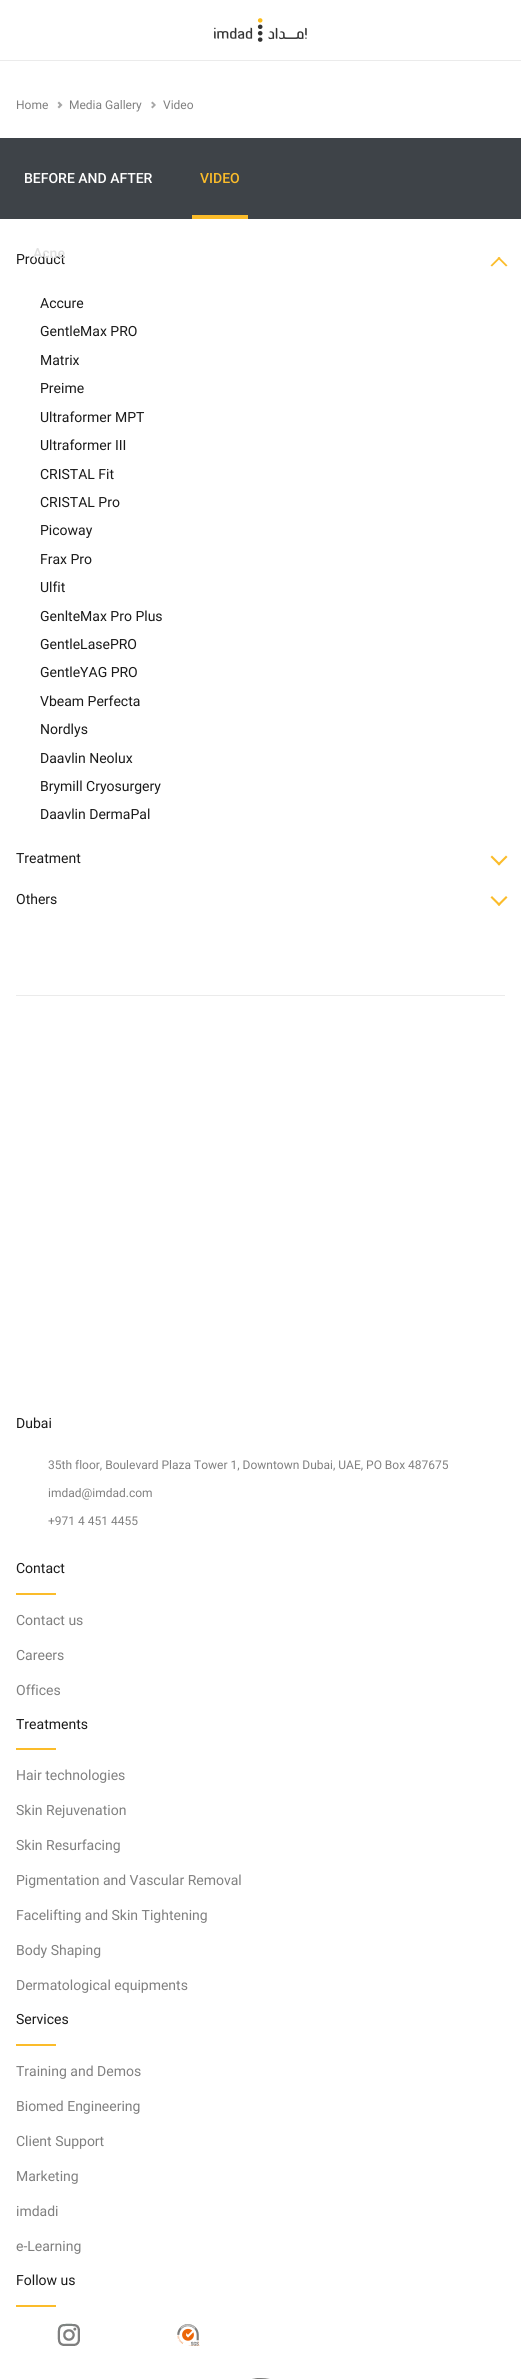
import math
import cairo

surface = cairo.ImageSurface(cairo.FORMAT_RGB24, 521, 2379)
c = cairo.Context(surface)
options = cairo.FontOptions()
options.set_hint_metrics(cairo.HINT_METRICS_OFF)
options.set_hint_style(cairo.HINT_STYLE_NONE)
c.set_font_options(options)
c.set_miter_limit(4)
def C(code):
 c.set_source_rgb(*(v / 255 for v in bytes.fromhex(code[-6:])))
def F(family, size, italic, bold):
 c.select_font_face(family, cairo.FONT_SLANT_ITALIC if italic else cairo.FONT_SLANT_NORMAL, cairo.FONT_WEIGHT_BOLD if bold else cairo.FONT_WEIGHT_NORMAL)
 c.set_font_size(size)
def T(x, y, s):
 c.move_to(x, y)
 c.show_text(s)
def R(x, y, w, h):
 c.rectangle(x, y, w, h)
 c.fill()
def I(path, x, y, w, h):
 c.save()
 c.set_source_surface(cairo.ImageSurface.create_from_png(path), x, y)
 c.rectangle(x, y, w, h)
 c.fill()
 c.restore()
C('ffffff')
c.paint()
C('ebebeb')
R(0,60,521,1)
I('1.png',214,18,93,24)
F('Roboto',12,0,0)
C('808080')
T(16,109,'Home')
C('a6a6a6')
c.new_path()
c.move_to(59,101.5)
c.line_to(62.5,105)
c.line_to(59.5,105)
c.line_to(57.5,103)
c.close_path()
c.move_to(62.5,105)
c.line_to(59,108.5)
c.line_to(57.5,107)
c.line_to(59.5,105)
c.close_path()
c.fill()
C('808080')
T(69,109,'Media Gallery')
C('a6a6a6')
c.new_path()
c.move_to(152.5,101.5)
c.line_to(156,105)
c.line_to(153.5,105)
c.line_to(151,103)
c.close_path()
c.move_to(156,105)
c.line_to(152.5,108.5)
c.line_to(151,107)
c.line_to(153.5,105)
c.close_path()
c.fill()
C('808080')
T(163,109,'Video')
C('3e4348')
R(0,138,521,81)
F('Roboto Medium',14,0,0)
C('ffffff')
T(24,183,'BEFORE AND AFTER')
C('fbbc2a')
T(200,183,'VIDEO')
R(192,215,56,4)
F('Roboto',14,0,0)
C('1a1a1a')
T(16,264,'Product')
F('Roboto Medium',14,0,0)
C('e1e1e1')
T(33,258,'Acne')
C('fbbc2a')
c.new_path()
c.move_to(500.5,258)
c.line_to(492,266.5)
c.line_to(490.5,265.5)
c.line_to(499,257)
c.close_path()
c.fill()
c.new_path()
c.move_to(507.5,265.5)
c.line_to(506,266.5)
c.line_to(497.5,258)
c.line_to(499,257)
c.close_path()
c.fill()
F('Roboto',14,0,0)
C('1a1a1a')
T(40,308,'Accure')
T(40,336,'GentleMax PRO')
T(40,365,'Matrix')
T(40,393,'Preime')
T(40,422,'Ultraformer MPT')
T(40,450,'Ultraformer III')
T(40,479,'CRISTAL Fit')
T(40,507,'CRISTAL Pro')
T(40,535,'Picoway')
T(40,564,'Frax Pro')
T(40,592,'Ulfit')
T(40,621,'GenlteMax Pro Plus')
T(40,649,'GentleLasePRO')
T(40,677,'GentleYAG PRO')
T(40,706,'Vbeam Perfecta')
T(40,734,'Nordlys')
T(40,763,'Daavlin Neolux')
T(40,791,'Brymill Cryosurgery')
T(40,819,'Daavlin DermaPal')
T(16,863,'Treatment')
C('fbbc2a')
c.new_path()
c.move_to(497.5,864)
c.line_to(506,855.5)
c.line_to(507.5,857)
c.line_to(499,865.5)
c.close_path()
c.fill()
c.new_path()
c.move_to(490.5,857)
c.line_to(492,855.5)
c.line_to(500.5,864)
c.line_to(499,865.5)
c.close_path()
c.fill()
C('1a1a1a')
T(16,904,'Others')
C('fbbc2a')
c.new_path()
c.move_to(497.5,904.5)
c.line_to(506,896)
c.line_to(507.5,897.5)
c.line_to(499,906)
c.close_path()
c.fill()
c.new_path()
c.move_to(490.5,897.5)
c.line_to(492,896)
c.line_to(500.5,904.5)
c.line_to(499,906)
c.close_path()
c.fill()
C('ebebeb')
R(16,995,489,1)
C('1a1a1a')
T(16,1428,'Dubai')
F('Roboto',12,0,0)
C('808080')
T(48,1469,'35th floor, Boulevard Plaza Tower 1, Downtown Dubai, UAE, PO Box 487675')
T(48,1497,'imdad@imdad.com')
T(48,1525,'+971 4 451 4455')
F('Roboto',14,0,0)
C('1a1a1a')
T(16,1573,'Contact')
C('fbbc2a')
R(16,1593,40,2)
C('808080')
T(16,1625,'Contact us')
T(16,1660,'Careers')
T(16,1695,'Offices')
C('1a1a1a')
T(16,1729,'Treatments')
C('fbbc2a')
R(16,1748,40,2)
C('808080')
T(16,1780,'Hair technologies')
T(16,1815,'Skin Rejuvenation')
T(16,1850,'Skin Resurfacing')
T(16,1885,'Pigmentation and Vascular Removal')
T(16,1920,'Facelifting and Skin Tightening')
T(16,1955,'Body Shaping')
T(16,1990,'Dermatological equipments')
C('1a1a1a')
T(16,2024,'Services')
C('fbbc2a')
R(16,2044,40,2)
C('808080')
T(16,2076,'Training and Demos')
T(16,2111,'Biomed Engineering')
T(16,2146,'Client Support')
T(16,2181,'Marketing')
T(16,2216,'imdadi')
T(16,2251,'e-Learning')
C('1a1a1a')
T(16,2285,'Follow us')
C('fbbc2a')
R(16,2305,40,2)
I('2.png',57,2323,23,23)
I('3.png',177,2324,23,22)
I('4.png',252,2378,18,1)
surface.write_to_png('o.png')
